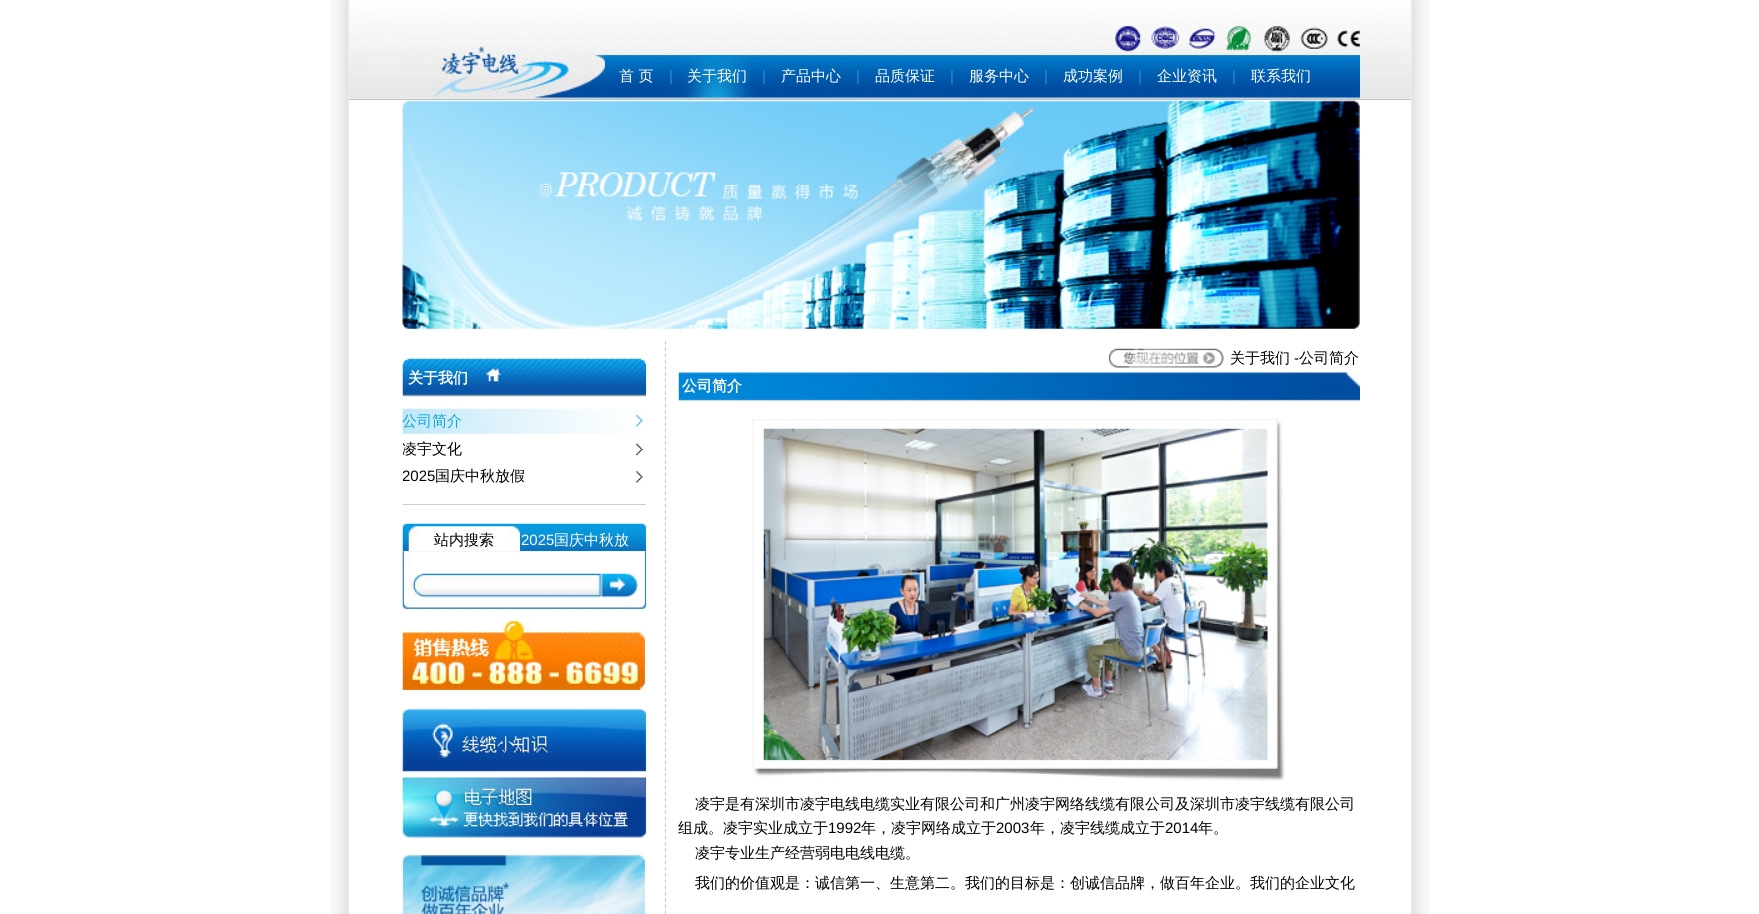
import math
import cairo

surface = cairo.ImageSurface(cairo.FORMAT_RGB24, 1759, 914)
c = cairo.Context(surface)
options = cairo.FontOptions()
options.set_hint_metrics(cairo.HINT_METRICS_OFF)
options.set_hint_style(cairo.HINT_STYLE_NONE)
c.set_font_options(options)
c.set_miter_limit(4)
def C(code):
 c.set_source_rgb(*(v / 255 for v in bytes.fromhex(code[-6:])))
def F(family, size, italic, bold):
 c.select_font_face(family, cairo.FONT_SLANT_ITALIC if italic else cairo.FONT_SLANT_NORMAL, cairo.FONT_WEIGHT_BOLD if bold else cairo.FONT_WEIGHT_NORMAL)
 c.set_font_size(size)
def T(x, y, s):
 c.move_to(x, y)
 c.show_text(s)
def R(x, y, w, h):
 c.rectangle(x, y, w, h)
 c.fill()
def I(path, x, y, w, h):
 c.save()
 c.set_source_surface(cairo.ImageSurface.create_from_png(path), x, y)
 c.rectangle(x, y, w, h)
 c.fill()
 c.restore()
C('ffffff')
c.paint()
I('1.png',330,0,1100,914)
I('2.png',348,0,1064,99)
C('c0c0c0')
R(349,99,1062,1)
I('3.png',1115,26,245,26)
I('4.png',432,46,176,53)
I('5.png',605,55,755,44)
F('WenQuanYi Zen Hei Medium',15,0,0)
C('ffffff')
T(619,81,'首 页')
F('Liberation Sans',15,0,0)
C('2690d1')
T(669,81,'|')
I('6.png',677,55,79,44)
F('WenQuanYi Zen Hei Medium',15,0,0)
C('ffffff')
T(687,81,'关于我们')
F('Liberation Sans',15,0,0)
C('2690d1')
T(762,81,'|')
F('WenQuanYi Zen Hei Medium',15,0,0)
C('ffffff')
T(781,81,'产品中心')
F('Liberation Sans',15,0,0)
C('2690d1')
T(856,81,'|')
F('WenQuanYi Zen Hei Medium',15,0,0)
C('ffffff')
T(875,81,'品质保证')
F('Liberation Sans',15,0,0)
C('2690d1')
T(950,81,'|')
F('WenQuanYi Zen Hei Medium',15,0,0)
C('ffffff')
T(969,81,'服务中心')
F('Liberation Sans',15,0,0)
C('2690d1')
T(1044,81,'|')
F('WenQuanYi Zen Hei Medium',15,0,0)
C('ffffff')
T(1063,81,'成功案例')
F('Liberation Sans',15,0,0)
C('2690d1')
T(1138,81,'|')
F('WenQuanYi Zen Hei Medium',15,0,0)
C('ffffff')
T(1157,81,'企业资讯')
F('Liberation Sans',15,0,0)
C('2690d1')
T(1232,81,'|')
F('WenQuanYi Zen Hei Medium',15,0,0)
C('ffffff')
T(1251,81,'联系我们')
I('7.png',402,100,958,229)
I('8.png',1108,348,116,20)
C('000000')
T(1230,363,'关于我们')
F('Liberation Sans',15,0,0)
T(1294,363,'-')
F('WenQuanYi Zen Hei Medium',15,0,0)
T(1299,363,'公司简介')
C('cccccc')
R(403,504,243,1)
I('9.png',402,358,245,39)
F('WenQuanYi Zen Hei',15,0,1)
C('ffffff')
T(408,383,'关于我们')
I('10.png',486,368,16,14)
I('11.png',402,408,241,26)
F('WenQuanYi Zen Hei Medium',15,0,0)
C('0da4e6')
T(402,426,'公司简介')
I('12.png',636,443,7,13)
c.save()
c.rectangle(403,341,243,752)
c.clip()
C('000000')
T(402,454,'凌宇文化')
c.restore()
I('13.png',636,471,7,12)
c.save()
c.rectangle(403,341,243,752)
c.clip()
F('Liberation Sans',15,0,0)
C('000000')
T(402,481,'2025')
c.restore()
C('000000')
T(435,481,'国庆中秋放假')
I('14.png',402,523,245,29)
I('15.png',408,526,112,25)
T(434,545,'站内搜索')
F('Liberation Sans',15,0,0)
C('ffffff')
T(521,545,'2025')
F('WenQuanYi Zen Hei Medium',15,0,0)
T(554,545,'国庆中秋放')
I('16.png',402,551,245,58)
I('17.png',412,573,190,25)
I('18.png',601,573,37,25)
I('19.png',402,621,243,69)
I('20.png',402,708,245,64)
I('21.png',402,777,245,61)
I('22.png',402,855,243,59)
c.new_path()
c.move_to(665.5,341)
c.line_to(665.5,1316)
C('cccccc')
c.set_line_width(1.2)
c.set_dash([3.75,2.51])
c.stroke()
I('23.png',678,372,682,30)
F('WenQuanYi Zen Hei',15,0,1)
C('ffffff')
T(682,391,'公司简介')
I('24.png',752,419,533,362)
F('WenQuanYi Zen Hei Medium',15,0,0)
C('000000')
T(695,809,'凌宇是有深圳市凌宇电线电缆实业有限公司和广州凌宇网络线缆有限公司及深圳市凌宇线缆有限公司')
T(678,833,'组成。凌宇实业成立于')
F('Liberation Sans',15,0,0)
T(828,833,'1992')
F('WenQuanYi Zen Hei Medium',15,0,0)
T(861,833,'年，凌宇网络成立于')
F('Liberation Sans',15,0,0)
T(996,833,'2003')
F('WenQuanYi Zen Hei Medium',15,0,0)
T(1030,833,'年，凌宇线缆成立于')
F('Liberation Sans',15,0,0)
T(1165,833,'2014')
F('WenQuanYi Zen Hei Medium',15,0,0)
T(1198,833,'年。')
T(695,858,'凌宇专业生产经营弱电电线电缆。')
T(695,888,'我们的价值观是：诚信第一、生意第二。我们的目标是：创诚信品牌，做百年企业。我们的企业文化')
surface.write_to_png('o.png')
